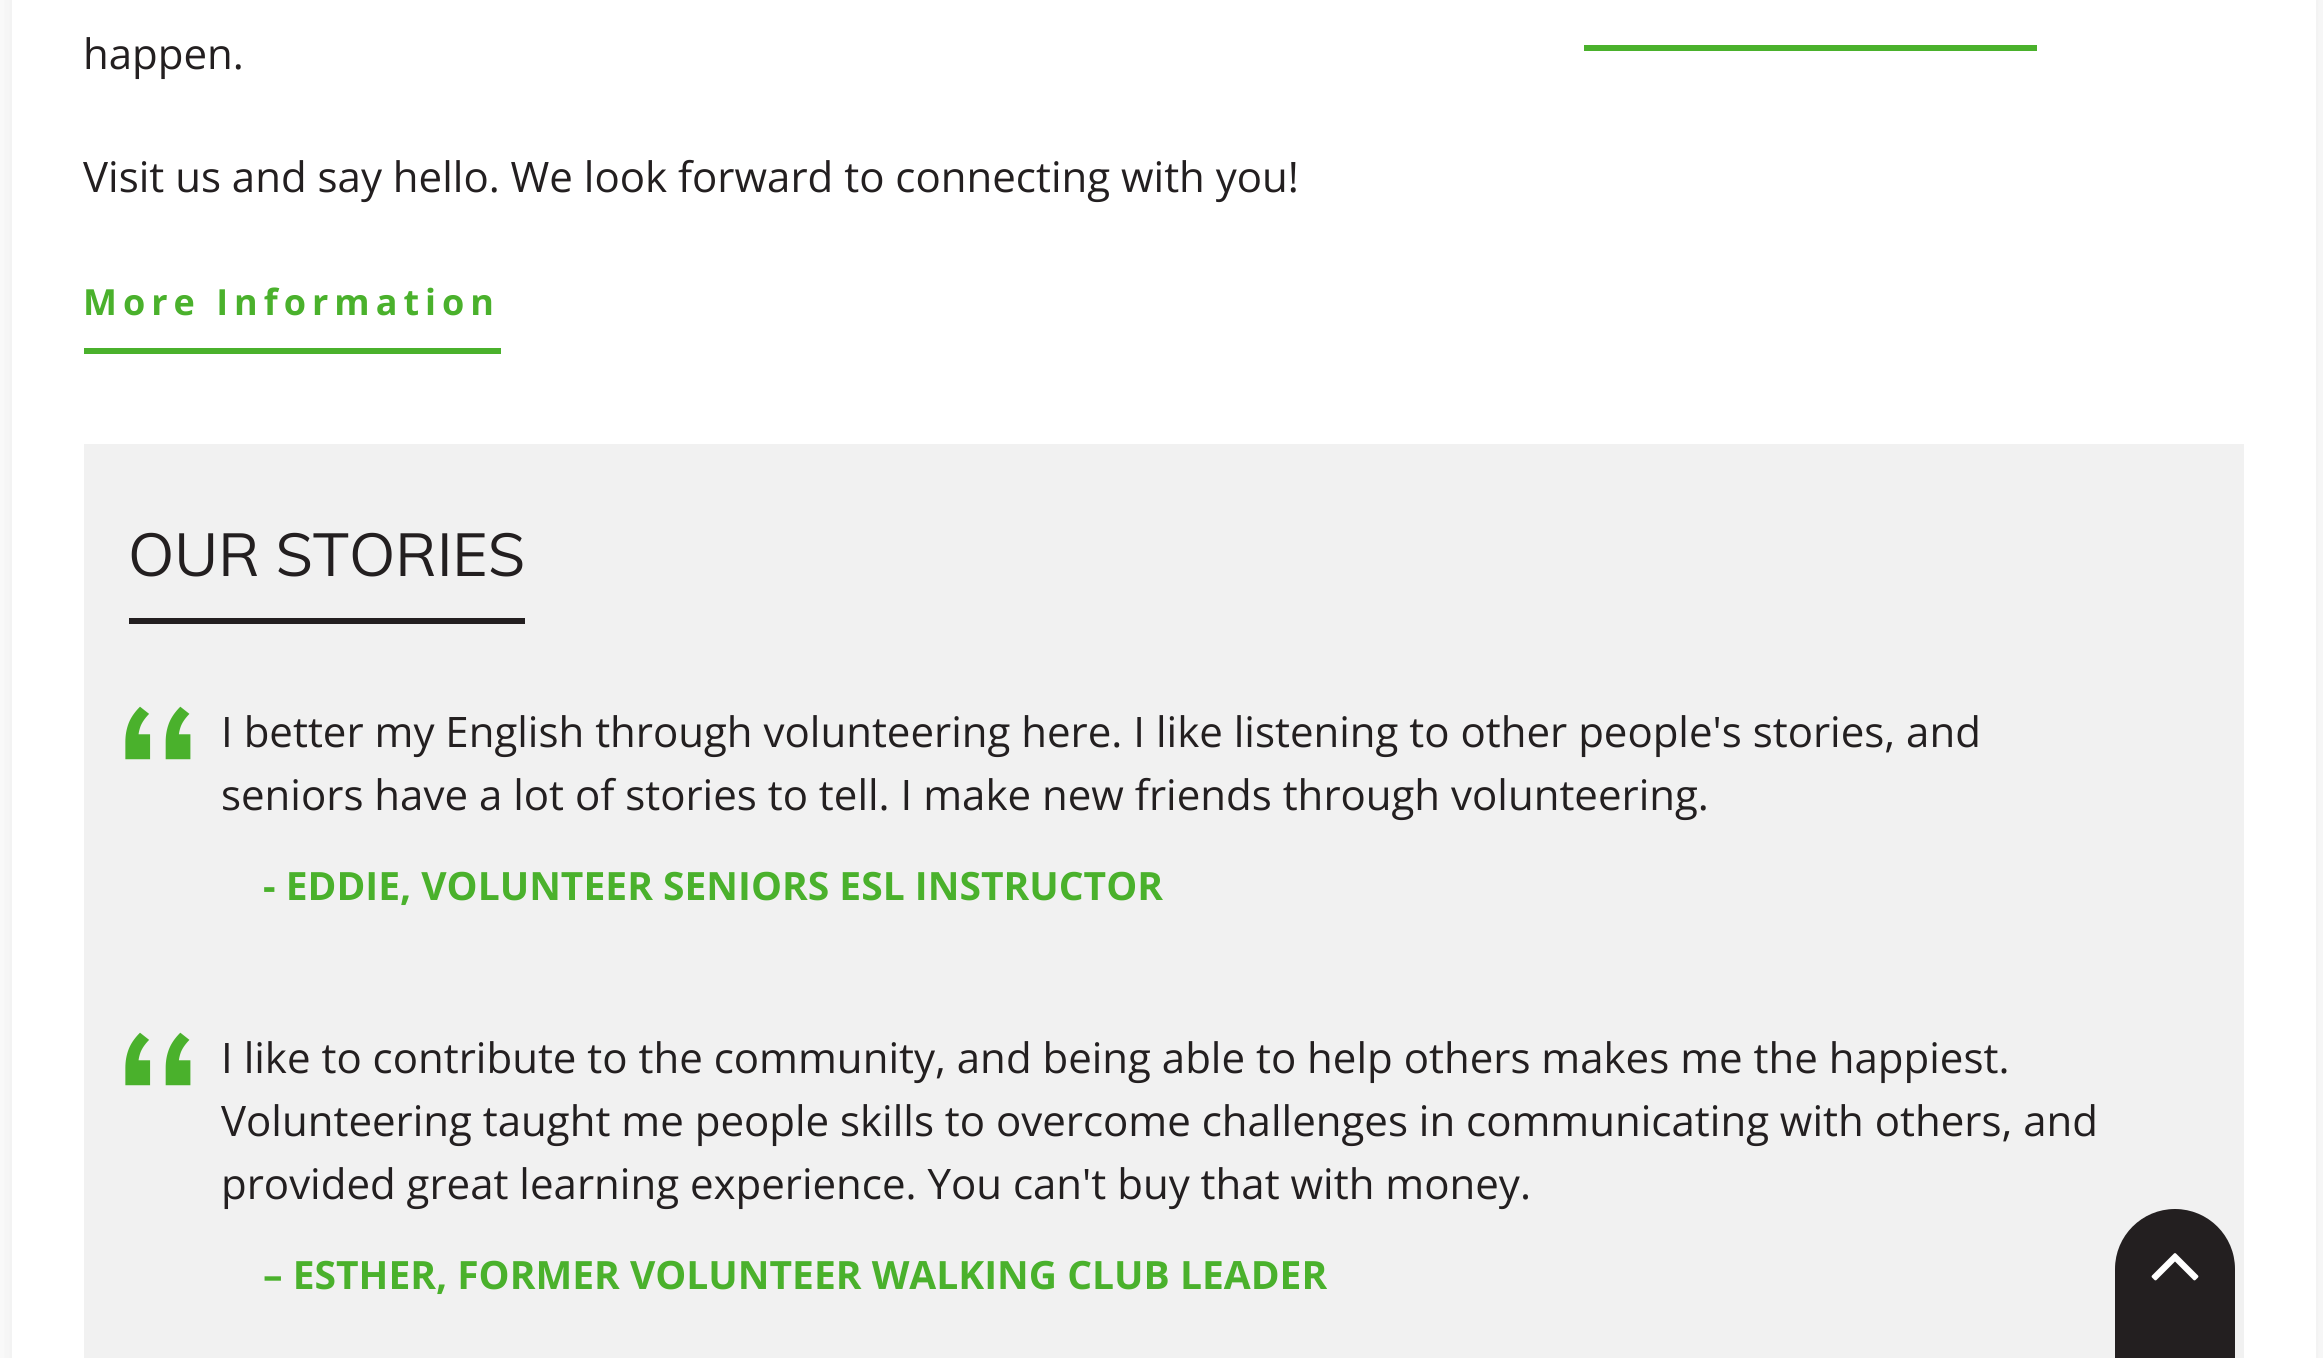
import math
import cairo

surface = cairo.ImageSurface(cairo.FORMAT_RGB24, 2323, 1358)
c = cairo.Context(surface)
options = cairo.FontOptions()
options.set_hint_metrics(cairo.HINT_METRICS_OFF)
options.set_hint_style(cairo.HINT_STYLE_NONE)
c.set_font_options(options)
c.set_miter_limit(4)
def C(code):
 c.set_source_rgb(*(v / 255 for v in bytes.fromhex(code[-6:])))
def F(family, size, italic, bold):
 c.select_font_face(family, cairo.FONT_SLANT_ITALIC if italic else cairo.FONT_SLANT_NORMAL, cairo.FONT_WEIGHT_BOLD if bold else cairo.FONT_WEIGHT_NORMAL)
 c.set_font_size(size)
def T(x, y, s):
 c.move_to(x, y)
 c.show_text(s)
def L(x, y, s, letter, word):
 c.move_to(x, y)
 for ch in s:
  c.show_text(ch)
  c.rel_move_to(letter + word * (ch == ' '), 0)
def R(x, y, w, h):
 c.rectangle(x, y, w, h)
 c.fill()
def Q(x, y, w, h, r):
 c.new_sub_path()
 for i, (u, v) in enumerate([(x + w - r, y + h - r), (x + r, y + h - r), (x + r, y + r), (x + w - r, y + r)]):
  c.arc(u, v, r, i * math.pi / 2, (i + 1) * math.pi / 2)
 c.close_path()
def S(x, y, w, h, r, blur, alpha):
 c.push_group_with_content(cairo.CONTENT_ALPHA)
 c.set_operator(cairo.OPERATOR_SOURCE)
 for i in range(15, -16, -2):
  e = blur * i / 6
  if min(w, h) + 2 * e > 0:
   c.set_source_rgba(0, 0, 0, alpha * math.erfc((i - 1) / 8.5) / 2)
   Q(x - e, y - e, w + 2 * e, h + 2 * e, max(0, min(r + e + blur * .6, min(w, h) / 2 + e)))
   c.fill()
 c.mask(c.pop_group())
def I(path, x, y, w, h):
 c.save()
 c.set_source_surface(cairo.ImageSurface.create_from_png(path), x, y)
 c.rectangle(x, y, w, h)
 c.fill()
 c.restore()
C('ffffff')
c.paint()
c.save()
c.set_fill_rule(cairo.FILL_RULE_EVEN_ODD)
c.new_path()
c.move_to(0,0)
c.line_to(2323,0)
c.line_to(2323,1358)
c.line_to(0,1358)
c.close_path()
c.move_to(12,-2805)
c.line_to(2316,-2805)
c.line_to(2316,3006)
c.line_to(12,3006)
c.close_path()
c.clip()
C('000000')
S(12,-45,2304,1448,0,15,.1)
c.restore()
F('Open Sans',42,0,0)
C('231f20')
T(83,69,'happen.')
T(83,192,'Visit us and say hello. We look forward to connecting with you!')
C('4ab12c')
R(84,348,417,6)
F('Open Sans',36,0,1)
L(83,315,'More Information',6,0)
R(1584,45,453,6)
C('f1f1f1')
R(84,444,2160,914)
C('231f20')
R(129,618,396,6)
F('Muli',60,0,0)
T(128,576,'OUR STORIES')
F('Muli',240,0,0)
C('4ab12c')
T(110,879,'“')
F('Open Sans',42,0,0)
C('231f20')
T(221,747,'I better my English through volunteering here. I like listening to other people\'s stories, and')
T(221,810,'seniors have a lot of stories to tell. I make new friends through volunteering.')
F('Open Sans',39,0,1)
C('4ab12c')
T(263,900,'- EDDIE, VOLUNTEER SENIORS ESL INSTRUCTOR')
F('Muli',240,0,0)
T(110,1205,'“')
F('Open Sans',42,0,0)
C('231f20')
T(221,1073,'I like to contribute to the community, and being able to help others makes me the happiest.')
T(221,1136,'Volunteering taught me people skills to overcome challenges in communicating with others, and')
T(221,1199,'provided great learning experience. You can\'t buy that with money.')
F('Open Sans',39,0,1)
C('4ab12c')
T(263,1289,'– ESTHER, FORMER VOLUNTEER WALKING CLUB LEADER')
C('231f20')
Q(2115,1209,120,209,60)
c.fill()
I('1.png',2151,1253,48,28)
surface.write_to_png('o.png')
